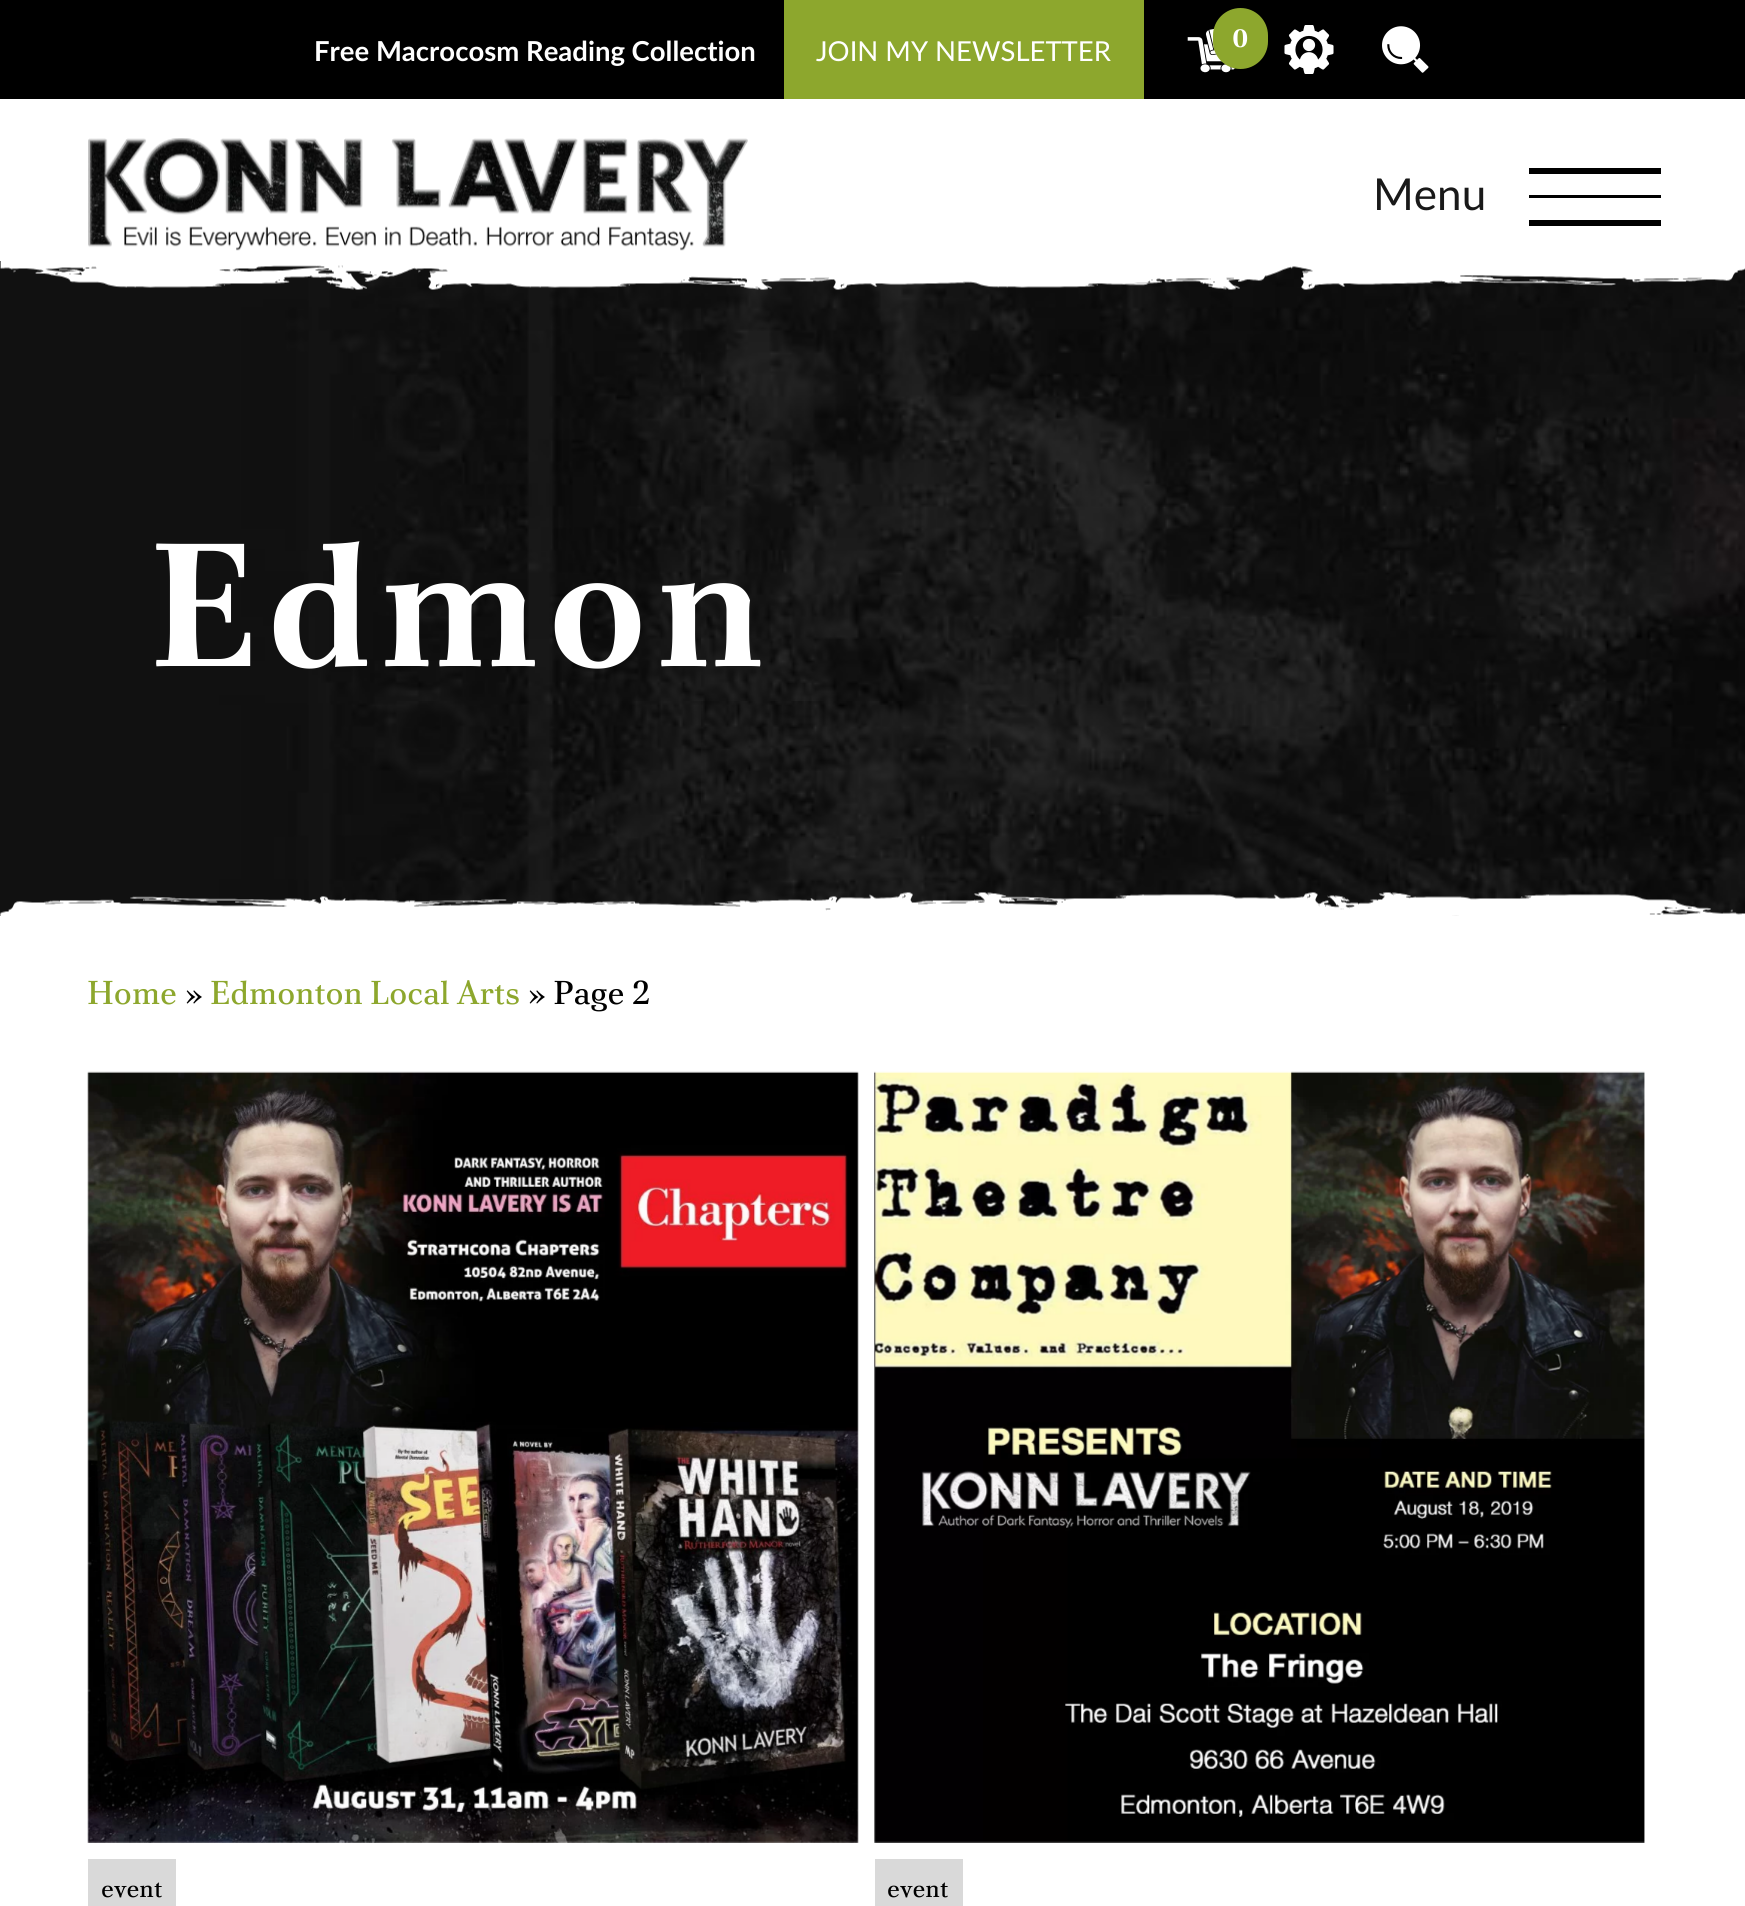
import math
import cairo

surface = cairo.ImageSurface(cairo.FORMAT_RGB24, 1745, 1906)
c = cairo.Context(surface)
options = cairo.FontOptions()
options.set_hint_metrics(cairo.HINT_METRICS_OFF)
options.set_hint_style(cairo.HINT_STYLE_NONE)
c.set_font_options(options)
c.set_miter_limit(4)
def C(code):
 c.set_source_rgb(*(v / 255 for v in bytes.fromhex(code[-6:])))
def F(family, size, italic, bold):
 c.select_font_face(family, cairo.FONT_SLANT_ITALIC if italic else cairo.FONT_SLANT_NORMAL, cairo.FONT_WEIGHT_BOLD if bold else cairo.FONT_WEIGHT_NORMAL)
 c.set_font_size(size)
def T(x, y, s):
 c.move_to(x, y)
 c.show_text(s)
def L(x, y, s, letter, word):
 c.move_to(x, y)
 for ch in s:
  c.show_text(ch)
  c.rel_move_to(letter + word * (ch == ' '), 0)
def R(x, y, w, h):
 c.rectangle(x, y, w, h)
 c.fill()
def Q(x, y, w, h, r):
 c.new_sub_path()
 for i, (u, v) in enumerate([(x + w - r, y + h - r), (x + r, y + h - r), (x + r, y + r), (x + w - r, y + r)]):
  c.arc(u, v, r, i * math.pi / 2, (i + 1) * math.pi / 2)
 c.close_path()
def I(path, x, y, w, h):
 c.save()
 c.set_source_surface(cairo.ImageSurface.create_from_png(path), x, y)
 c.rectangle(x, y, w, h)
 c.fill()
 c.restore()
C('ffffff')
c.paint()
C('000000')
R(0,0,1745,99)
F('Lato',27.5,0,1)
C('ffffff')
T(314,61,'Free Macrocosm Reading Collection')
C('8da72d')
R(784,0,360,99)
F('Lato',27.5,0,0)
C('ffffff')
T(816,61,'JOIN MY NEWSLETTER')
I('1.png',1187,28,48,45)
C('8da72d')
Q(1213,8,55,61,27.5)
c.fill()
F('Poltawski Nowy',25,0,1)
C('ffffff')
T(1232,47,'0')
I('2.png',1284,25,50,49)
I('3.png',1382,26,47,47)
I('4.png',88,138,660,113)
F('Lato',44,0,0)
C('191919')
T(1373,210,'Menu')
C('000000')
R(1529,168,132,6)
R(1529,195,132,3)
R(1529,220,132,6)
I('6.png',0,261,1745,655)
I('5.png',0,261,1745,29)
F('Poltawski Nowy',174.5,0,1)
C('ffffff')
L(149,666,'Edmon',8.75,0)
I('7.png',0,892,1745,24)
F('Poltawski Nowy',33,0,0)
C('8da72d')
T(87,1004,'Home')
C('000000')
T(185,1004,'»')
C('8da72d')
T(210,1004,'Edmonton Local Arts')
C('000000')
T(528,1004,'» Page 2')
I('8.png',87,1071,772,772)
C('d9d9d9')
R(88,1859,88,47)
F('Poltawski Nowy',25,0,0)
C('000000')
T(101,1897,'event')
I('9.png',874,1071,771,772)
C('d9d9d9')
R(875,1859,88,47)
C('000000')
T(887,1897,'event')
surface.write_to_png('o.png')
